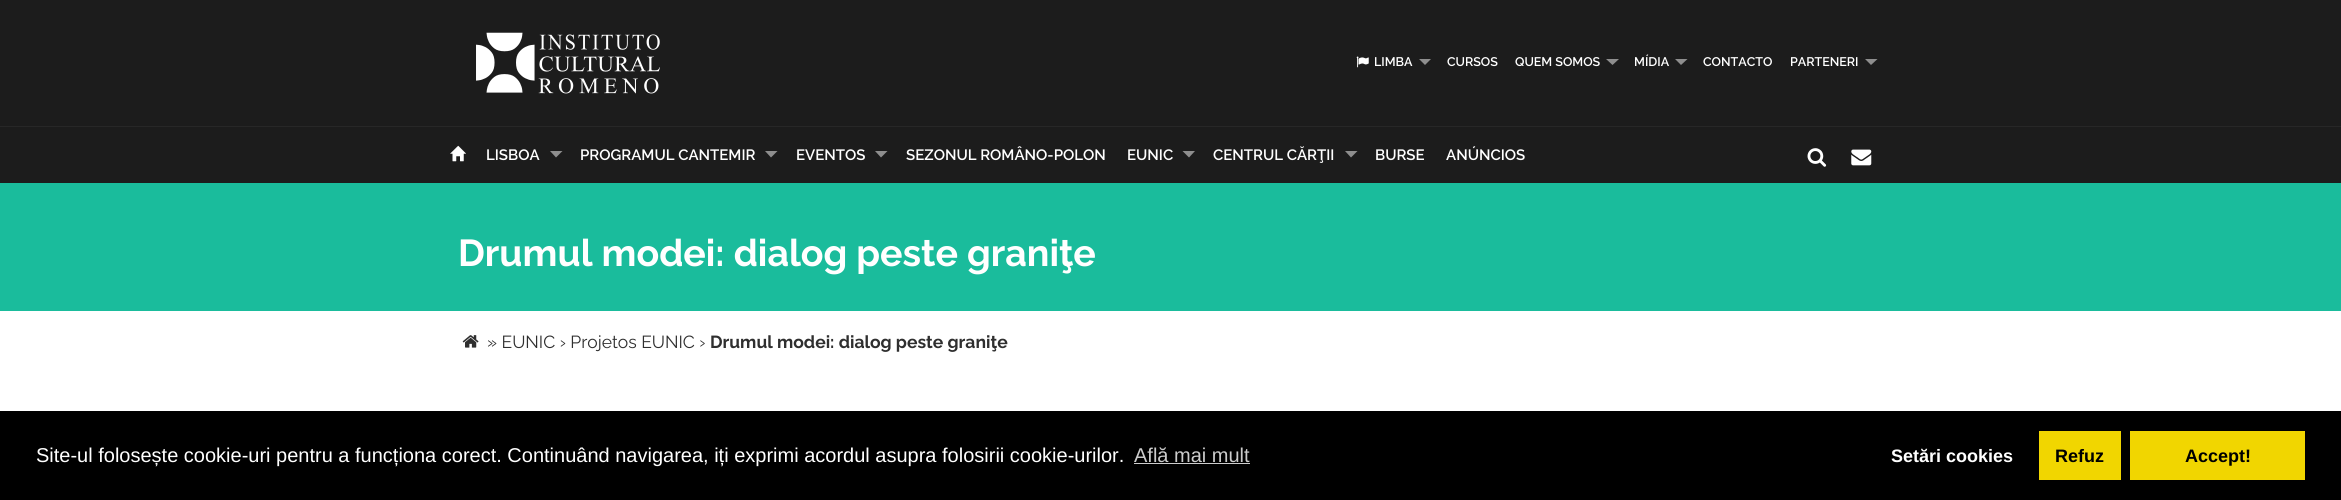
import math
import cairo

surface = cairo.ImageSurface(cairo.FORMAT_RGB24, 2341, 500)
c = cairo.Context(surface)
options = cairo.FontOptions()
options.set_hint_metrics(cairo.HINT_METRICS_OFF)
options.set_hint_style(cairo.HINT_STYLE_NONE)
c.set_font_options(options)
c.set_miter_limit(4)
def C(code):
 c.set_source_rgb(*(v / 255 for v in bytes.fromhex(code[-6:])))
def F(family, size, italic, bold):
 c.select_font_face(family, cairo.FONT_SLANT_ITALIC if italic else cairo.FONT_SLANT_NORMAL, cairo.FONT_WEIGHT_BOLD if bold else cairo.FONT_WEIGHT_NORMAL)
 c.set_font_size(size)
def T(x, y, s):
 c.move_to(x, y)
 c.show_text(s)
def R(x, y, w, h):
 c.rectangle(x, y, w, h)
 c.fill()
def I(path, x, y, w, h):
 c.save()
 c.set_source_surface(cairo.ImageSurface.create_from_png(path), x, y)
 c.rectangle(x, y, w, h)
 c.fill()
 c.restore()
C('ffffff')
c.paint()
C('1c1c1c')
R(0,0,2341,183)
C('272727')
R(0,126,2341,1)
I('1.png',476,32,184,62)
I('2.png',1356,56,13,12)
F('Raleway SemiBold',12.5,0,0)
C('ffffff')
T(1374,66,'LIMBA')
C('8e8e8e')
c.new_path()
c.move_to(1419,59)
c.line_to(1431,59)
c.line_to(1425,65)
c.close_path()
c.fill()
C('ffffff')
T(1447,66,'CURSOS')
T(1515,66,'QUEM SOMOS')
C('8e8e8e')
c.new_path()
c.move_to(1606,59)
c.line_to(1619,59)
c.line_to(1612.5,65)
c.close_path()
c.fill()
C('ffffff')
T(1634,66,'MÍDIA')
C('8e8e8e')
c.new_path()
c.move_to(1675,59)
c.line_to(1687.5,59)
c.line_to(1681,65)
c.close_path()
c.fill()
C('ffffff')
T(1703,66,'CONTACTO')
T(1790,66,'PARTENERI')
C('8e8e8e')
c.new_path()
c.move_to(1865,59)
c.line_to(1877.5,59)
c.line_to(1871,65)
c.close_path()
c.fill()
I('3.png',450,145,16,17)
F('Raleway SemiBold',15,0,0)
C('ffffff')
T(486,160,'LISBOA')
C('8e8e8e')
c.new_path()
c.move_to(550,151)
c.line_to(562.5,151)
c.line_to(556,157.5)
c.close_path()
c.fill()
C('ffffff')
T(580,160,'PROGRAMUL CANTEMIR')
C('8e8e8e')
c.new_path()
c.move_to(765,151)
c.line_to(777.5,151)
c.line_to(771,157.5)
c.close_path()
c.fill()
C('ffffff')
T(796,160,'EVENTOS')
C('8e8e8e')
c.new_path()
c.move_to(875,151)
c.line_to(887.5,151)
c.line_to(881,157.5)
c.close_path()
c.fill()
C('ffffff')
T(906,160,'SEZONUL ROMÂNO-POLON')
T(1127,160,'EUNIC')
C('8e8e8e')
c.new_path()
c.move_to(1182.5,151)
c.line_to(1195,151)
c.line_to(1189,157.5)
c.close_path()
c.fill()
C('ffffff')
T(1213,160,'CENTRUL CĂRŢII')
C('8e8e8e')
c.new_path()
c.move_to(1345,151)
c.line_to(1357.5,151)
c.line_to(1351,157.5)
c.close_path()
c.fill()
C('ffffff')
T(1375,160,'BURSE')
T(1446,160,'ANÚNCIOS')
I('4.png',1807,148,20,19)
I('5.png',1851,149,21,17)
C('1abc9c')
R(0,183,2341,128)
F('Raleway',37.5,0,1)
C('ffffff')
T(458,266,'Drumul modei: dialog peste graniţe')
I('6.png',462,335,17,13)
F('Raleway',17.5,0,0)
C('2f2f2f')
T(487,348,'» EUNIC › Projetos EUNIC ›')
F('Raleway',17.5,0,1)
T(710,348,'Drumul modei: dialog peste graniţe')
C('000000')
R(0,411,2341,89)
F('Liberation Sans',20,0,0)
C('ffffff')
T(36,462,'Site-ul folosește cookie-uri pentru a funcționa corect. Continuând navigarea, iți exprimi acordul asupra folosirii cookie-urilor.')
C('cccccc')
T(1134,462,'Află mai mult')
R(1134,463,116,1)
F('Liberation Sans',18,0,1)
C('ffffff')
T(1891,462,'Setări cookies')
C('f1d600')
R(2039,431,82,49)
C('000000')
T(2055,462,'Refuz')
C('f1d600')
R(2130,431,175,49)
C('000000')
T(2185,462,'Accept!')
surface.write_to_png('o.png')
